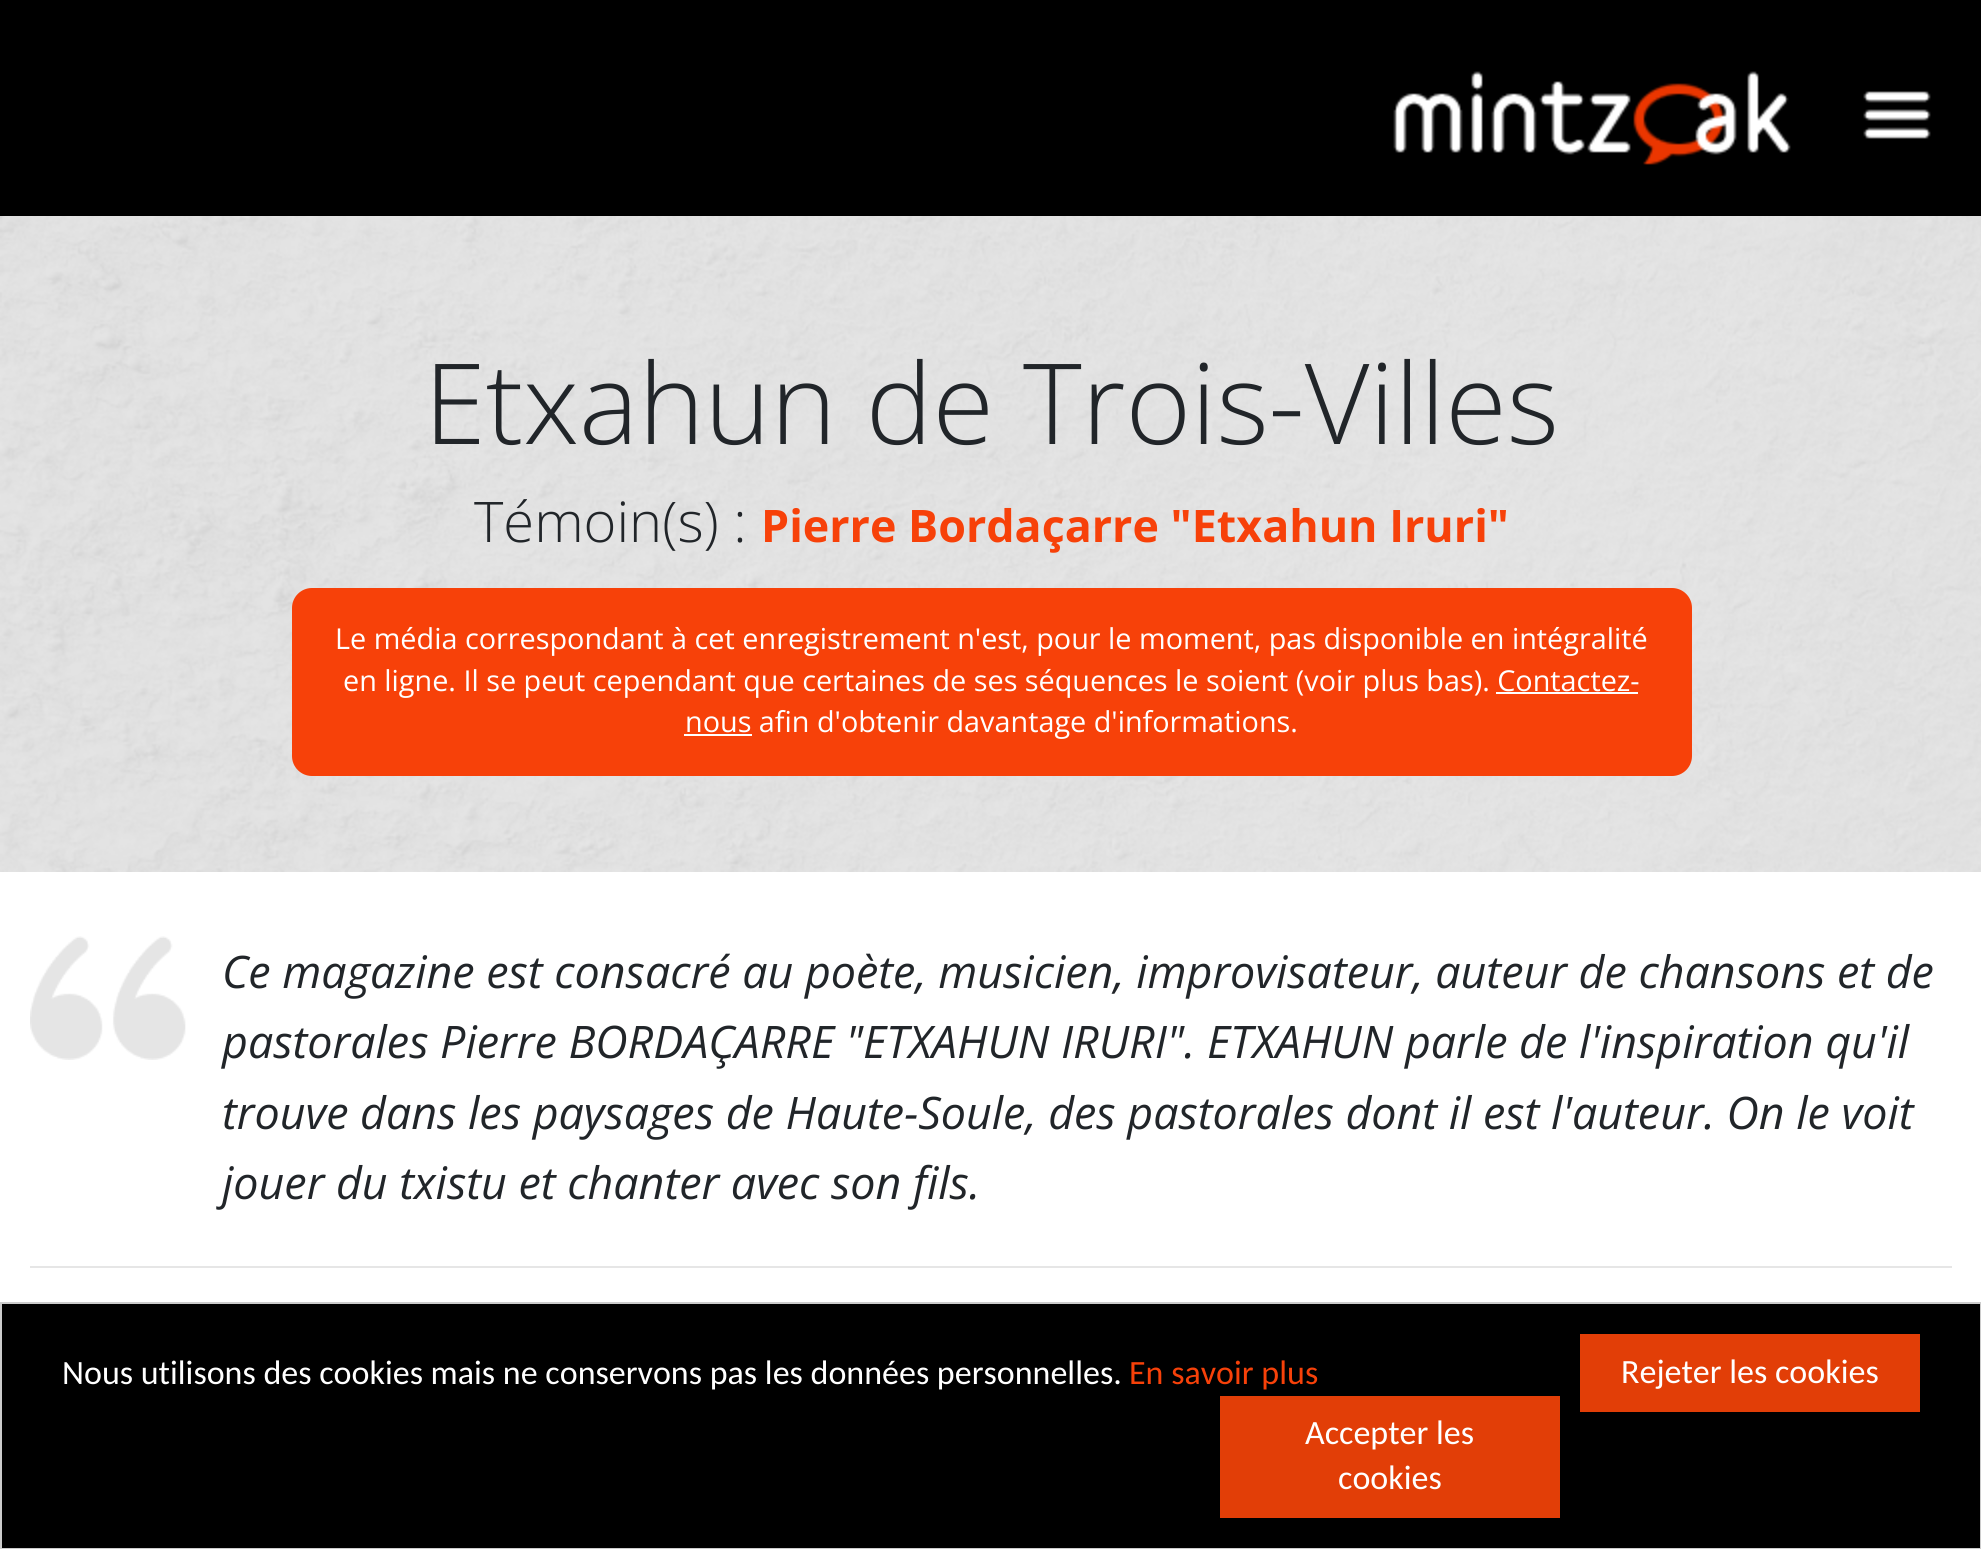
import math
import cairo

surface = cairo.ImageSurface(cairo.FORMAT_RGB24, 1981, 1549)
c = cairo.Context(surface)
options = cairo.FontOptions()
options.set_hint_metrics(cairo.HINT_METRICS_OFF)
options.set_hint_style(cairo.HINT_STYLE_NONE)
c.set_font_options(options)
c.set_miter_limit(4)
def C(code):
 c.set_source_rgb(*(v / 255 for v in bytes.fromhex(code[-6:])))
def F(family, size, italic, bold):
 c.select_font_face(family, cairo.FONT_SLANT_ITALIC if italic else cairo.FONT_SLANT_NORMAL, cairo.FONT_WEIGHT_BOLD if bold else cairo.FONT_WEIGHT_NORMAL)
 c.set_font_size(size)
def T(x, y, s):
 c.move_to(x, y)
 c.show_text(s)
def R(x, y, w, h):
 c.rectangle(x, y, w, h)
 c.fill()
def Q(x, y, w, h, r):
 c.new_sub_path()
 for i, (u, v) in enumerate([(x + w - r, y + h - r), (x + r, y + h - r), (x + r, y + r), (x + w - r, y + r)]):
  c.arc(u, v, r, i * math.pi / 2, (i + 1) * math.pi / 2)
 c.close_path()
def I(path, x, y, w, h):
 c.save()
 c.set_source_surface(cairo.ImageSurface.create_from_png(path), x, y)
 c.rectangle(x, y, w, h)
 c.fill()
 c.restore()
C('ffffff')
c.paint()
C('000000')
R(0,0,1981,216)
I('1.png',1393,71,398,94)
I('2.png',1863,91,68,48)
I('3.png',0,216,1981,656)
F('Open Sans Light',112,0,0)
C('212529')
T(424,444,'Etxahun de Trois-Villes')
F('Open Sans Light',56,0,0)
T(474,542,'Témoin(s) :')
F('Open Sans',44.8,0,1)
C('f74109')
T(761,542,'Pierre Bordaçarre "Etxahun Iruri"')
Q(292,588,1400,188,20)
c.fill()
F('Open Sans',28.8,0,0)
C('ffffff')
T(335,649,'Le média correspondant à cet enregistrement n\'est, pour le moment, pas disponible en intégralité')
T(343,691,'en ligne. Il se peut cependant que certaines de ses séquences le soient (voir plus bas). Contactez-')
R(684,734,68,2)
T(685,732,'nous afin d\'obtenir davantage d\'informations.')
R(1496,692,142,2)
I('4.png',30,936,156,124)
F('Open Sans',44.8,1,0)
C('212529')
T(222,988,'Ce magazine est consacré au poète, musicien, improvisateur, auteur de chansons et de')
T(222,1058,'pastorales Pierre BORDAÇARRE "ETXAHUN IRURI". ETXAHUN parle de l\'inspiration qu\'il')
T(222,1129,'trouve dans les paysages de Haute-Soule, des pastorales dont il est l\'auteur. On le voit')
T(222,1199,'jouer du txistu et chanter avec son fils.')
C('e6e6e6')
R(30,1266,1922,2)
C('000000')
c.rectangle(1,1303,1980,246)
c.fill_preserve()
C('cccccc')
c.stroke()
F('Carlito',34,0,0)
C('ffffff')
T(62,1384,'Nous utilisons des cookies mais ne conservons pas les données personnelles.')
C('f74109')
T(1129,1384,'En savoir plus')
C('e23e07')
R(1580,1334,340,78)
C('ffffff')
T(1621,1383,'Rejeter les cookies')
C('e23e07')
R(1220,1396,340,122)
C('ffffff')
T(1305,1444,'Accepter les')
T(1338,1489,'cookies')
surface.write_to_png('o.png')
